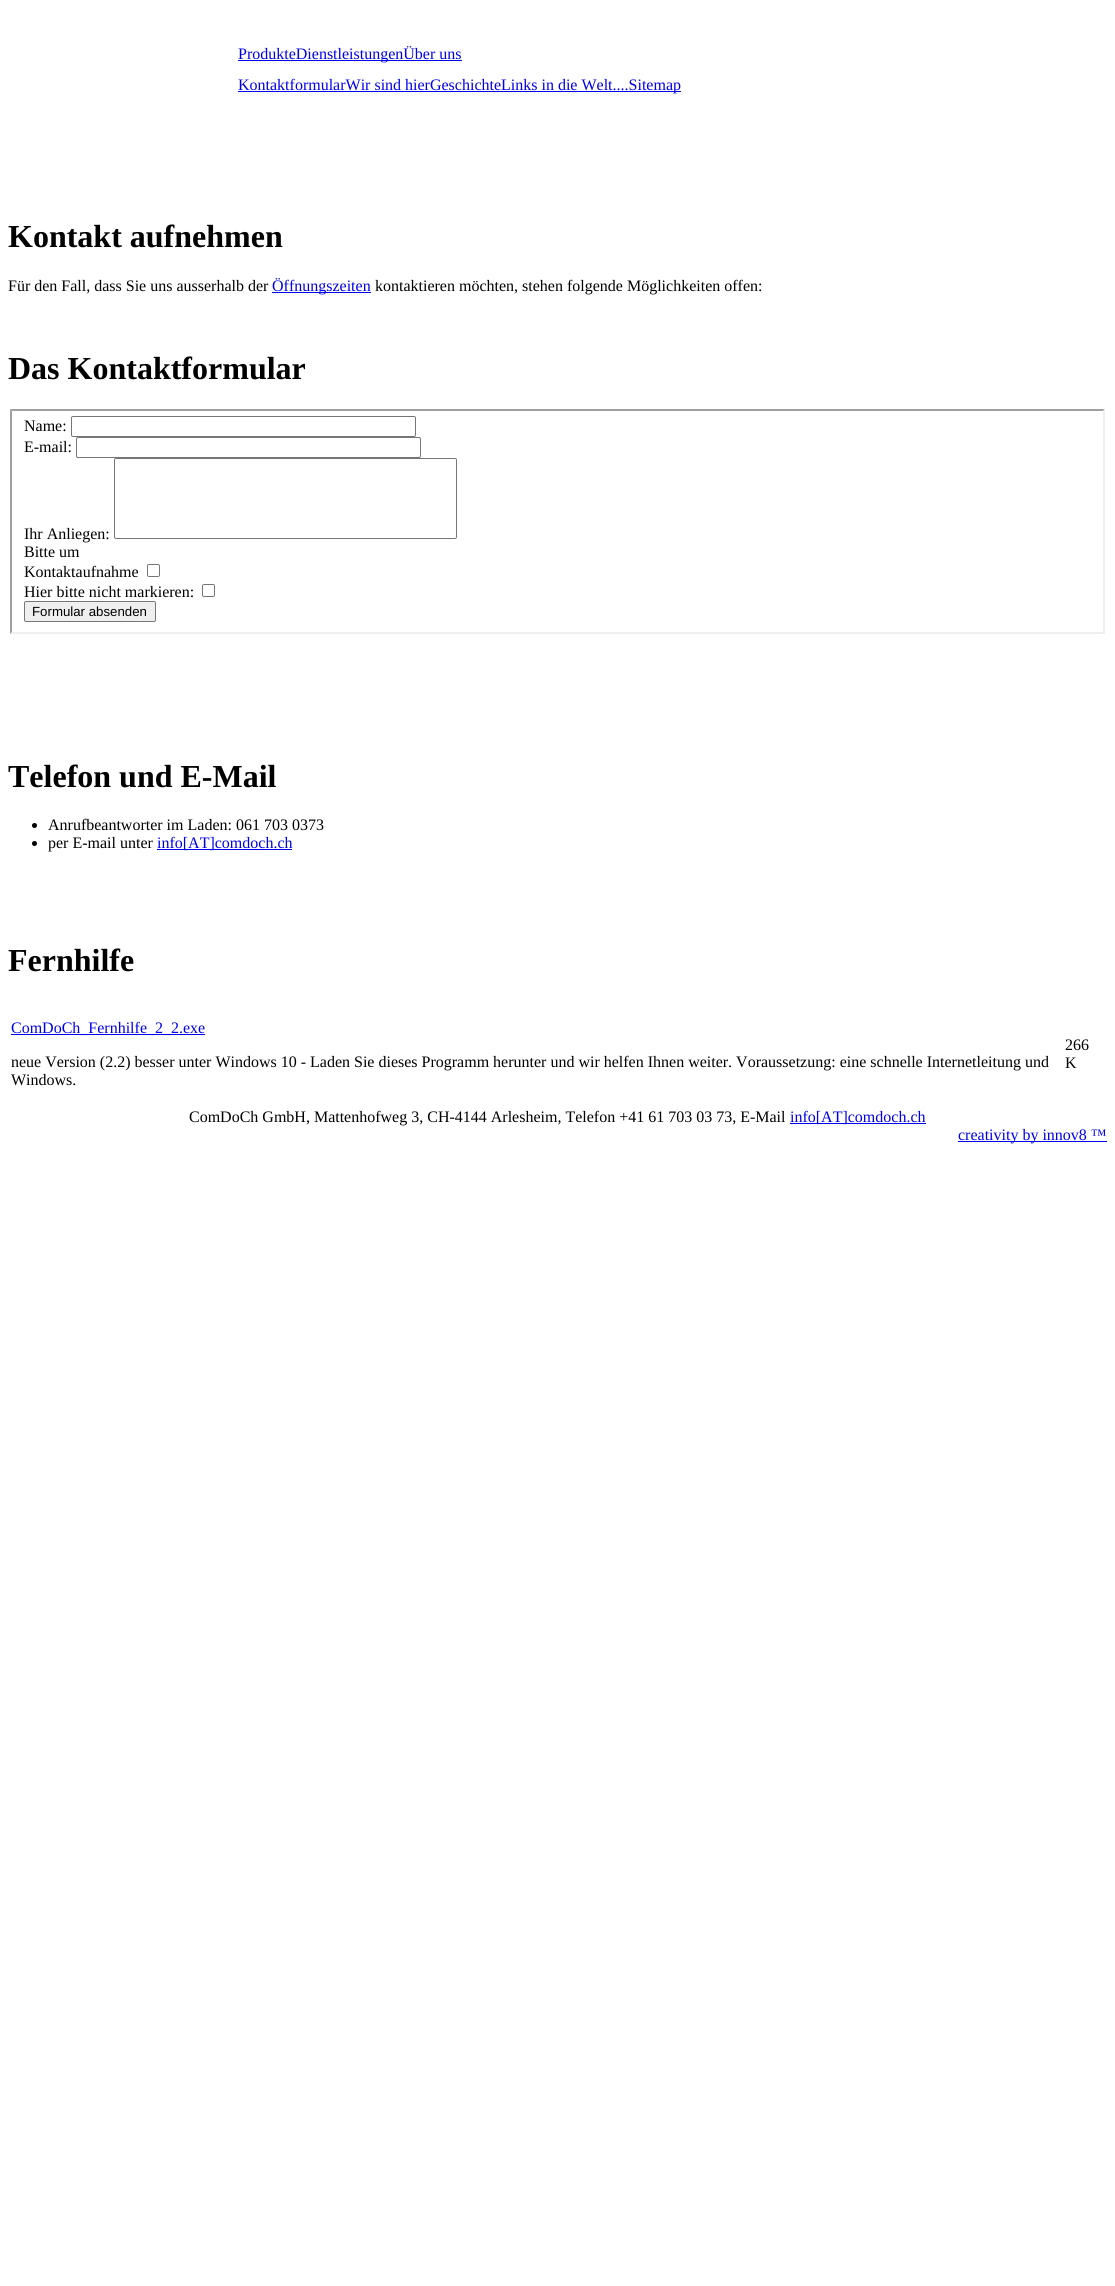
import math
import cairo

surface = cairo.ImageSurface(cairo.FORMAT_RGB24, 1115, 2286)
c = cairo.Context(surface)
options = cairo.FontOptions()
options.set_hint_metrics(cairo.HINT_METRICS_OFF)
options.set_hint_style(cairo.HINT_STYLE_NONE)
c.set_font_options(options)
c.set_miter_limit(4)
def C(code):
 c.set_source_rgb(*(v / 255 for v in bytes.fromhex(code[-6:])))
def F(family, size, italic, bold):
 c.select_font_face(family, cairo.FONT_SLANT_ITALIC if italic else cairo.FONT_SLANT_NORMAL, cairo.FONT_WEIGHT_BOLD if bold else cairo.FONT_WEIGHT_NORMAL)
 c.set_font_size(size)
def T(x, y, s):
 c.move_to(x, y)
 c.show_text(s)
def R(x, y, w, h):
 c.rectangle(x, y, w, h)
 c.fill()
def Q(x, y, w, h, r):
 c.new_sub_path()
 for i, (u, v) in enumerate([(x + w - r, y + h - r), (x + r, y + h - r), (x + r, y + r), (x + w - r, y + r)]):
  c.arc(u, v, r, i * math.pi / 2, (i + 1) * math.pi / 2)
 c.close_path()
C('ffffff')
c.paint()
C('0000ee')
R(238,60,165,1)
F('Liberation Serif',16,0,0)
T(238,59,'ProdukteDienstleistungenÜber uns')
R(403,60,59,1)
R(238,91,443,1)
T(238,90,'KontaktformularWir sind hierGeschichteLinks in die Welt....Sitemap')
F('Liberation Serif',32,0,1)
C('000000')
T(8,247,'Kontakt aufnehmen')
F('Liberation Serif',16,0,0)
T(8,291,'Für den Fall, dass Sie uns ausserhalb der')
C('0000ee')
R(272,292,99,1)
T(272,291,'Öffnungszeiten')
C('000000')
T(375,291,'kontaktieren möchten, stehen folgende Möglichkeiten offen:')
F('Liberation Serif',32,0,1)
T(8,379,'Das Kontaktformular')
C('9f9f9f')
c.new_path()
c.move_to(10,409)
c.line_to(1105,409)
c.line_to(1103,411)
c.line_to(12,411)
c.close_path()
c.fill()
C('efefef')
c.new_path()
c.move_to(1105,409)
c.line_to(1105,634)
c.line_to(1103,632)
c.line_to(1103,411)
c.close_path()
c.fill()
c.new_path()
c.move_to(1105,634)
c.line_to(10,634)
c.line_to(12,632)
c.line_to(1103,632)
c.close_path()
c.fill()
C('9f9f9f')
c.new_path()
c.move_to(10,634)
c.line_to(10,409)
c.line_to(12,411)
c.line_to(12,632)
c.close_path()
c.fill()
F('Liberation Serif',16,0,0)
C('000000')
T(24,431,'Name:')
Q(71.5,416.5,344,20,1.5)
C('767676')
c.set_line_width(1)
c.stroke()
C('000000')
T(24,452,'E-mail:')
Q(76.5,437.5,344,20,1.5)
C('767676')
c.stroke()
C('000000')
T(24,539,'Ihr Anliegen:')
Q(114.5,458.5,342,80,1.5)
C('767676')
c.stroke()
C('000000')
T(24,557,'Bitte um')
T(24,577,'Kontaktaufnahme')
Q(147.5,564.5,12,12,1.5)
C('767676')
c.stroke()
C('000000')
T(24,597,'Hier bitte nicht markieren:')
Q(202.5,584.5,12,12,1.5)
C('767676')
c.stroke()
C('efefef')
Q(24.5,601.5,131,20,1.5)
c.fill_preserve()
C('767676')
c.stroke()
F('Liberation Sans',13.25,0,0)
C('000000')
T(32,616,'Formular absenden')
F('Liberation Serif',32,0,1)
T(8,787,'Telefon und E-Mail')
c.new_path()
c.arc(34.5,825.5,2.5,0,2 * math.pi)
c.fill()
F('Liberation Serif',16,0,0)
T(48,830,'Anrufbeantworter im Laden: 061 703 0373')
c.new_path()
c.arc(34.5,843.5,2.5,0,2 * math.pi)
c.fill()
T(48,848,'per E-mail unter')
C('0000ee')
R(157,849,135,1)
T(157,848,'info[AT]comdoch.ch')
F('Liberation Serif',32,0,1)
C('000000')
T(8,971,'Fernhilfe')
C('0000ee')
R(11,1034,194,1)
F('Liberation Serif',16,0,0)
T(11,1033,'ComDoCh_Fernhilfe_2_2.exe')
C('000000')
T(11,1067,'neue Version (2.2) besser unter Windows 10 - Laden Sie dieses Programm herunter und wir helfen Ihnen weiter. Voraussetzung: eine schnelle Internetleitung und')
T(11,1085,'Windows.')
T(1065,1050,'266')
T(1065,1068,'K')
T(189,1122,'ComDoCh GmbH, Mattenhofweg 3, CH-4144 Arlesheim, Telefon +41 61 703 03 73, E-Mail')
C('0000ee')
R(790,1123,136,1)
T(790,1122,'info[AT]comdoch.ch')
R(958,1141,149,1)
T(958,1140,'creativity by innov8 ™')
surface.write_to_png('o.png')
